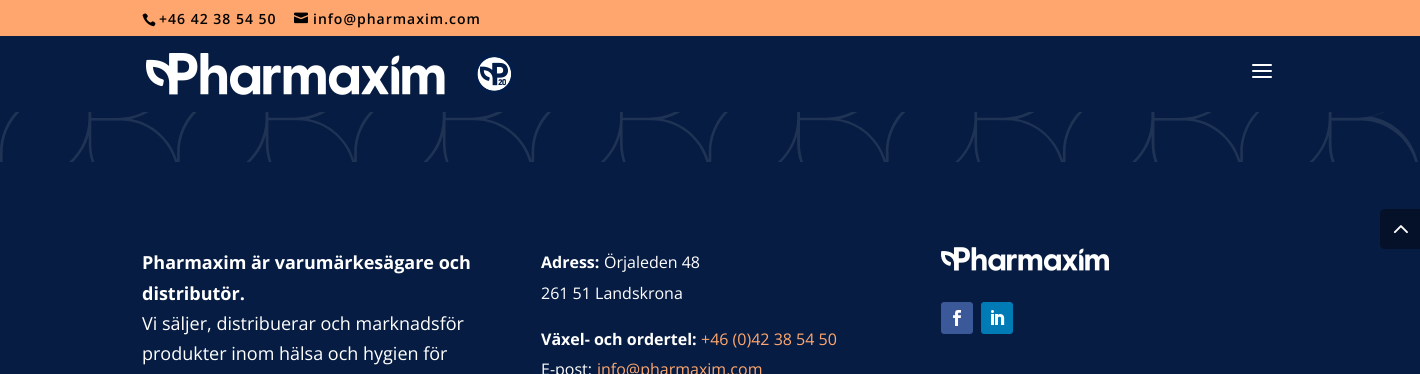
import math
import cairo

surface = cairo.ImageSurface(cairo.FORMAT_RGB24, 1420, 374)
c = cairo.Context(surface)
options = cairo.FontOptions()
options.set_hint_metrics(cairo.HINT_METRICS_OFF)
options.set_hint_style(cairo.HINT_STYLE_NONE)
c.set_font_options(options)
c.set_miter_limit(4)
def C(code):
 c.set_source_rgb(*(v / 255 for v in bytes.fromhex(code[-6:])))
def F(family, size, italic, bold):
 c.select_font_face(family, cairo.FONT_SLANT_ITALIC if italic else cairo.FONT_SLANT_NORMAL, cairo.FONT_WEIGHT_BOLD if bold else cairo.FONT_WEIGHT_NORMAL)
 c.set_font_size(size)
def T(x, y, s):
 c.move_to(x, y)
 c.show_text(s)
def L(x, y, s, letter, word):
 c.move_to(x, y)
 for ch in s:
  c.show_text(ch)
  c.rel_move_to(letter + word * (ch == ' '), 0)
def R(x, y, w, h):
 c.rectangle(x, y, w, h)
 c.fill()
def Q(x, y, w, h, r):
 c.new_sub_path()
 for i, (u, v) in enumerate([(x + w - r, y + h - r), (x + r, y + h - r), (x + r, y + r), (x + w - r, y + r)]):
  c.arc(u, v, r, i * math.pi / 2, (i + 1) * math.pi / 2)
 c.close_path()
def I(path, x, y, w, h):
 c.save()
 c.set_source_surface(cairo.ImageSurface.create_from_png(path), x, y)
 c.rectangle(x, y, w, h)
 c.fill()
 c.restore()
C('061c42')
c.paint()
C('fea66d')
R(0,0,1420,36)
I('1.png',142,13,14,14)
F('Open Sans SemiBold',14,0,0)
C('000000')
L(159,24,'+46 42 38 54 50',1,0)
I('2.png',294,12,14,12)
L(313,24,'info@pharmaxim.com',1,0)
I('3.png',146,53,369,42)
I('4.png',1252,64,20,14)
I('5.png',0,112,1418,50)
F('Open Sans',18,0,1)
C('ffffff')
T(142,269,'Pharmaxim är varumärkesägare och')
T(142,300,'distributör.')
F('Open Sans',18,0,0)
T(142,330,'Vi säljer, distribuerar och marknadsför')
T(142,360,'produkter inom hälsa och hygien för')
F('Open Sans',16,0,1)
T(541,268,'Adress:')
F('Open Sans',16,0,0)
T(604,268,'Örjaleden 48')
T(541,299,'261 51 Landskrona')
F('Open Sans',16,0,1)
T(541,345,'Växel- och ordertel:')
F('Open Sans',16,0,0)
C('fea66d')
T(701,345,'+46 (0)42 38 54 50')
C('ffffff')
T(541,375,'E-post:')
C('fea66d')
T(597,375,'info@pharmaxim.com')
I('6.png',941,247,168,24)
C('3b5998')
Q(941,302,32,32,3)
c.fill()
I('7.png',953,310,8,16)
C('007bb6')
Q(981,302,32,32,3)
c.fill()
I('8.png',991,310,14,15)
C('041128')
c.new_path()
c.move_to(1385,209)
c.line_to(1420,209)
c.line_to(1420,249)
c.line_to(1385,249)
c.curve_to(1382,249,1380,247,1380,244)
c.line_to(1380,214)
c.curve_to(1380,211,1382,209,1385,209)
c.close_path()
c.fill()
I('9.png',1393,225,15,9)
surface.write_to_png('o.png')
